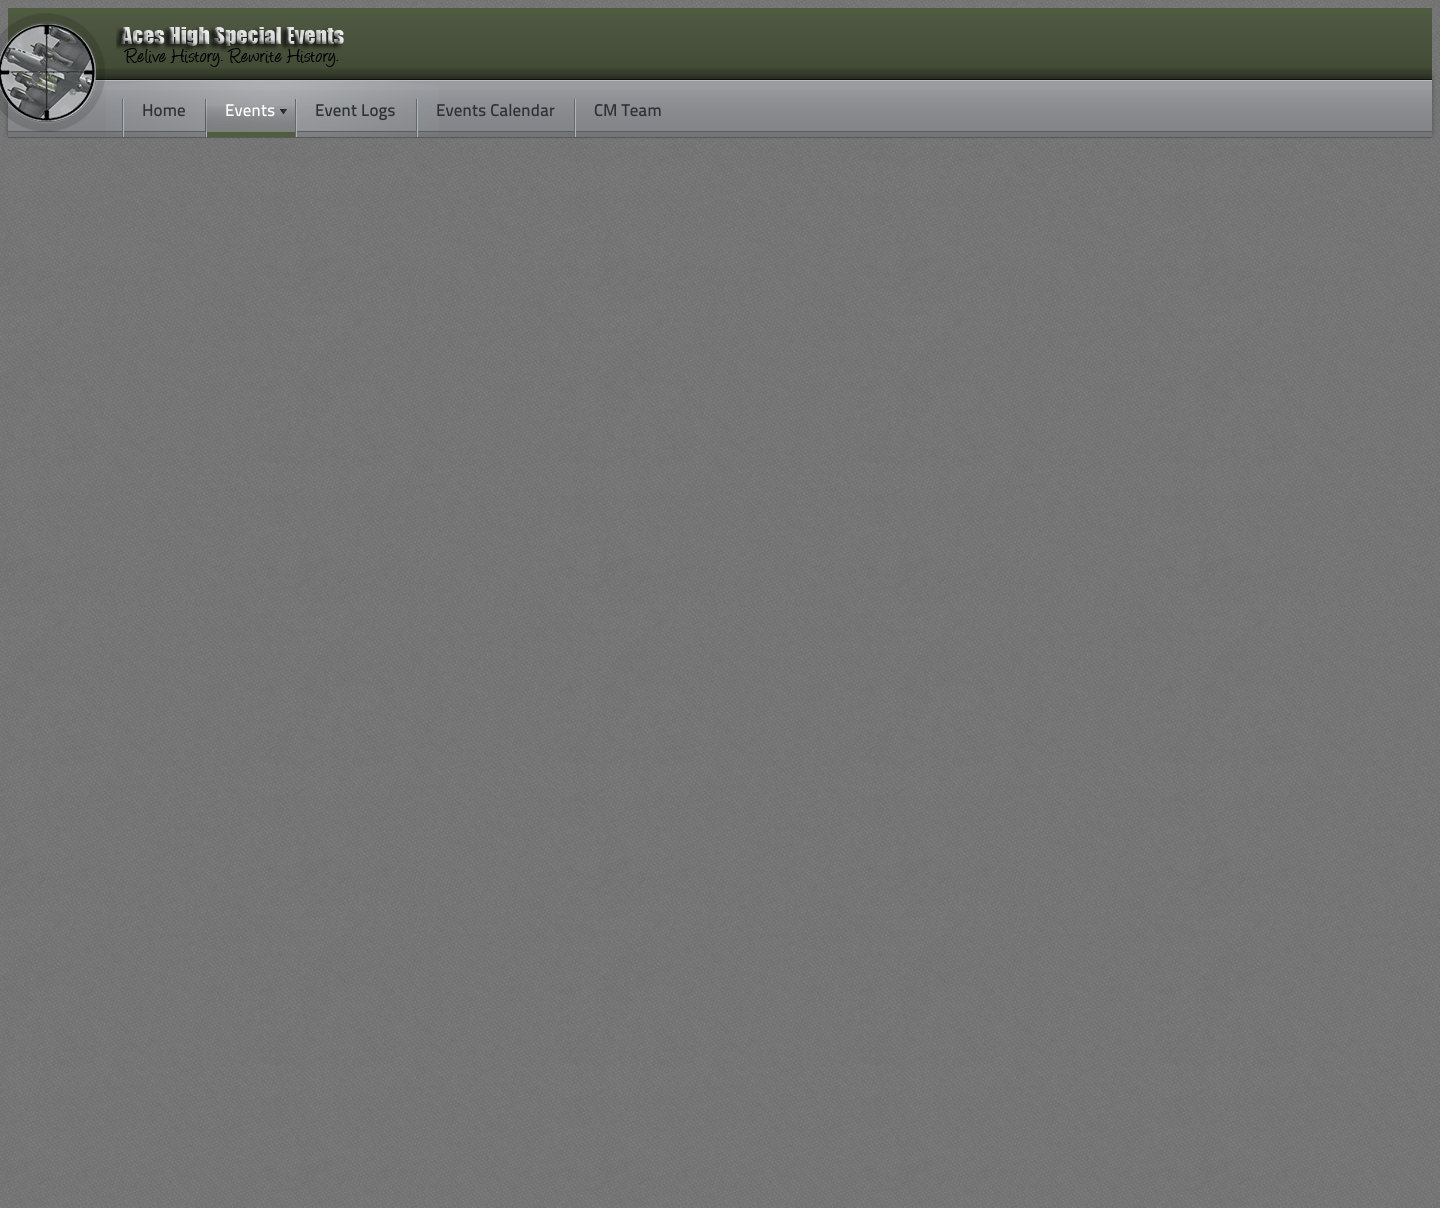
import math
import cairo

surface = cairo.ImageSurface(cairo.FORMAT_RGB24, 1440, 1208)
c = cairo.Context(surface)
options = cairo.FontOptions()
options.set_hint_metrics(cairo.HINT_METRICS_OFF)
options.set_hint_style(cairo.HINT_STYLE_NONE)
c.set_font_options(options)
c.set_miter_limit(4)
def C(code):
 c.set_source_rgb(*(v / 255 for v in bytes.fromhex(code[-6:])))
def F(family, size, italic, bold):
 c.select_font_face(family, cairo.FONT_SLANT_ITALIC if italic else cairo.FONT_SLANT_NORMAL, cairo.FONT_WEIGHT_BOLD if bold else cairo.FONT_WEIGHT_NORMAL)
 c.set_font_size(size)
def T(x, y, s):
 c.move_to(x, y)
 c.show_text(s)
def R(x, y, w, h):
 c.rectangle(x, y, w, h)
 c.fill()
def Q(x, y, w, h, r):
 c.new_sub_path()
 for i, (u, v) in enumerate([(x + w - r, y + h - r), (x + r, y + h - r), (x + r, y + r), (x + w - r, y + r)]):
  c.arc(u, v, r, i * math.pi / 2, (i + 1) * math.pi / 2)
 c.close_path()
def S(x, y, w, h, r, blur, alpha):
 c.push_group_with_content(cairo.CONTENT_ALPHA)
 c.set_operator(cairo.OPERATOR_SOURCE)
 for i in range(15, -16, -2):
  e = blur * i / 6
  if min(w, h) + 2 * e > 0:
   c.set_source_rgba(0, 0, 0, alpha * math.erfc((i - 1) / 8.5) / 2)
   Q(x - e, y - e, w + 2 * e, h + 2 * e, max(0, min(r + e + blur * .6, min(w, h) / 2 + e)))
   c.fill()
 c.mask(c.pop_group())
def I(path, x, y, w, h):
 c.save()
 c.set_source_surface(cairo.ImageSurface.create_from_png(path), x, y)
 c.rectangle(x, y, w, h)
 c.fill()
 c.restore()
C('7a7a7a')
c.paint()
I('1.png',0,0,1440,1208)
C('505c40')
R(8,8,1424,61)
C('444e36')
R(92,69,1340,10)
I('2.png',8,14,1424,65)
C('000000')
S(8,76,1424,59,0,2.5,.3)
C('111111')
R(95,79,1337,1)
C('999b9f')
R(8,81,1424,56)
I('5.png',8,90,1424,47)
C('babbbd')
R(91,80,1341,1)
I('6.png',106,81,333,56)
C('595e62')
R(8,131,1424,1)
I('3.png',0,13,105,119)
I('4.png',116,27,228,40)
c.set_source_rgba(0,0,0,0.2)
R(8,137,1424,1)
I('10.png',8,132,1424,5)
I('7.png',122,99,2,38)
F('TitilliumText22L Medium',17,0,0)
C('2d3035')
T(142,116,'Home')
I('7.png',205,99,2,38)
I('8.png',205,106,90,26)
C('ffffff')
T(225,116,'Events')
I('9.png',280,109,7,5)
C('505c40')
R(207,132,88,5)
C('7c8470')
R(207,131,88,1)
I('7.png',295,99,2,38)
C('2d3035')
T(315,116,'Event Logs')
I('7.png',416,99,2,38)
T(436,116,'Events Calendar')
I('7.png',574,99,2,38)
T(594,116,'CM Team')
surface.write_to_png('o.png')
